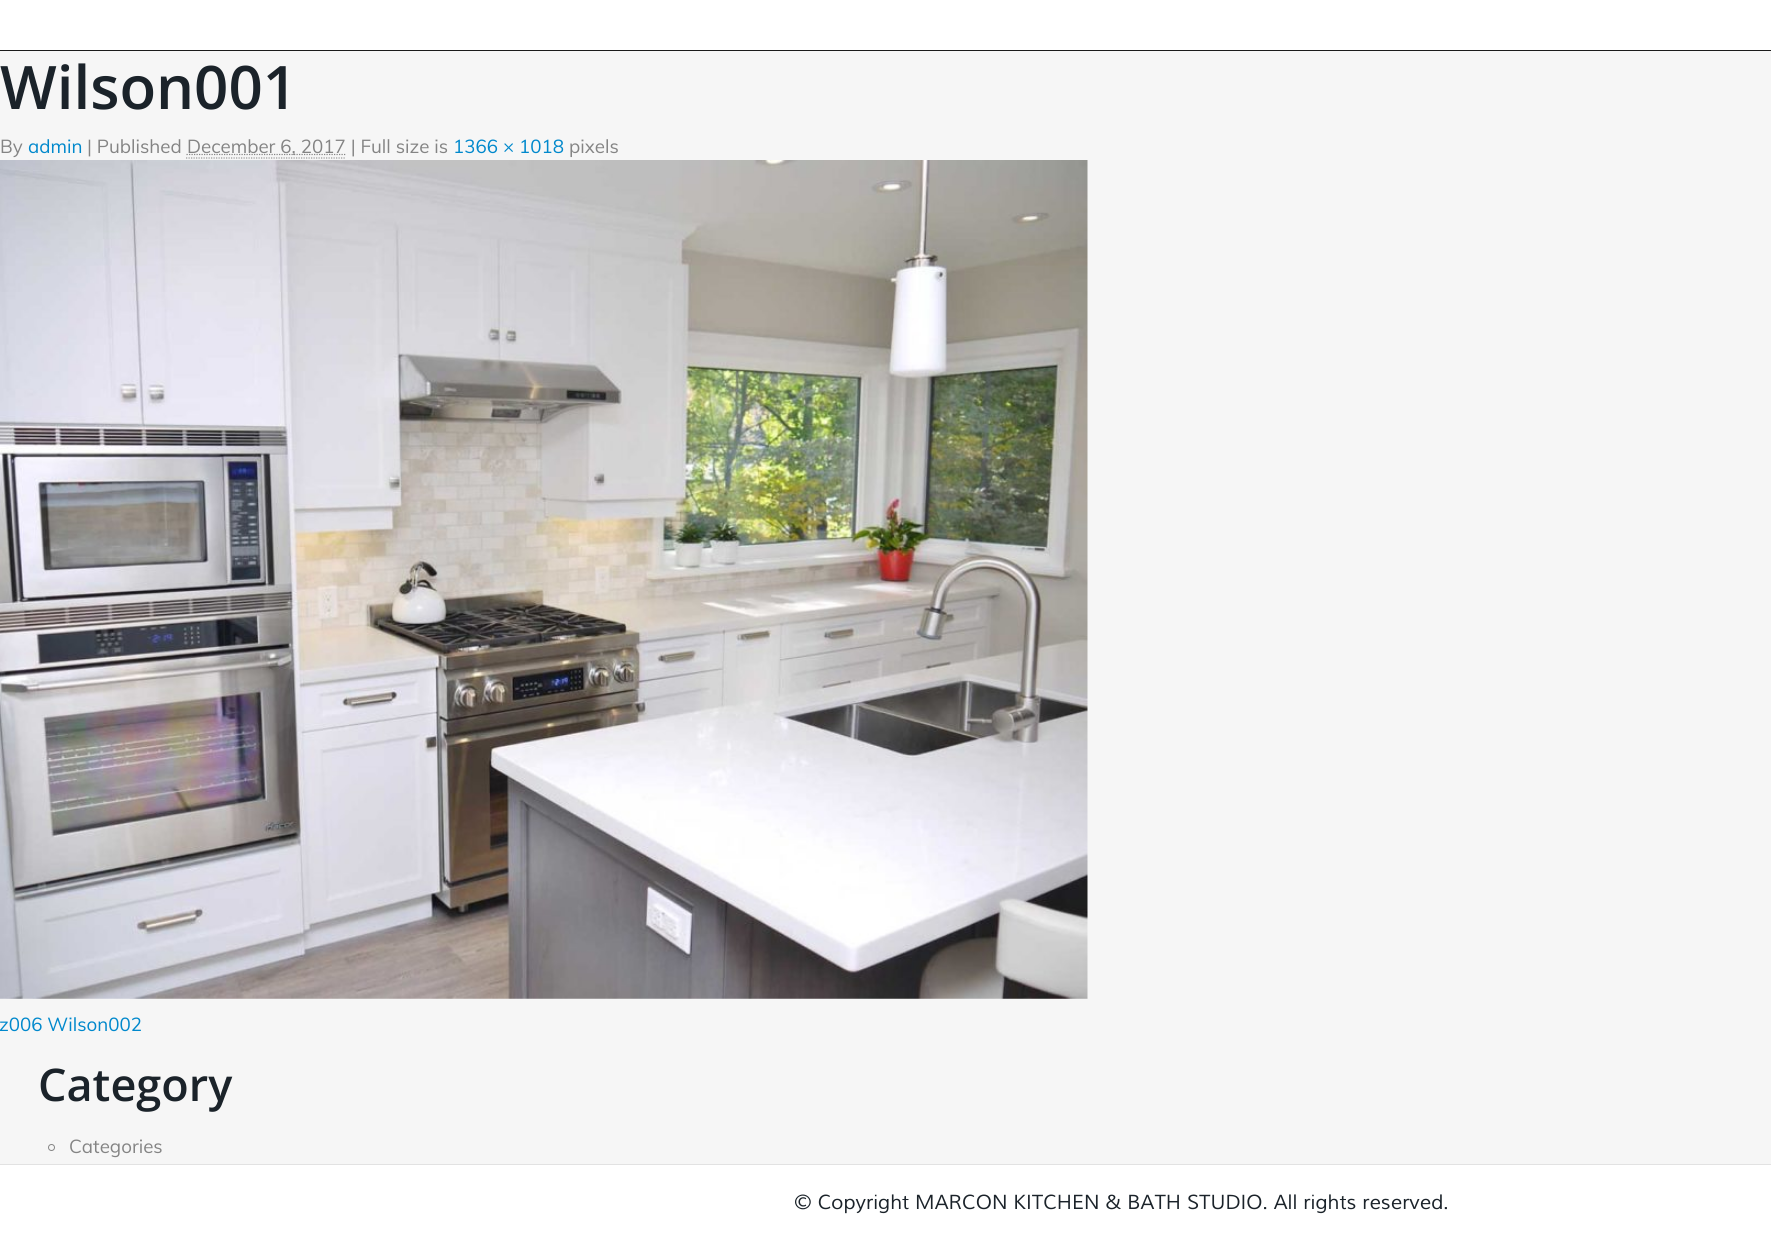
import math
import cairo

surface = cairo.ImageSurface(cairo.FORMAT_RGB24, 1771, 1239)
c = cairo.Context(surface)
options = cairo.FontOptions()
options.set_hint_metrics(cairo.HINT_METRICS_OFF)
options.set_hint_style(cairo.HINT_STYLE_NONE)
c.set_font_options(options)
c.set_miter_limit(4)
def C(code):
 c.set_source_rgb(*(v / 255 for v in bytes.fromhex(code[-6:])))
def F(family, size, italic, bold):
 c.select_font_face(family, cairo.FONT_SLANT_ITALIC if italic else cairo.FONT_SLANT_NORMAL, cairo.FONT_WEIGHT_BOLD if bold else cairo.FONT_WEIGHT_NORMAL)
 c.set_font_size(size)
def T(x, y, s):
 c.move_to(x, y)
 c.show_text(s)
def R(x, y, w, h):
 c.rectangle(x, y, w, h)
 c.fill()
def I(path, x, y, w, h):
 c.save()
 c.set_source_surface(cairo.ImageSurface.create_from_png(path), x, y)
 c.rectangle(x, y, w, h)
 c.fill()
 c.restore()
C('f6f6f6')
c.paint()
C('1b1b1b')
R(0,50,1771,1)
C('ffffff')
R(0,0,1771,50)
F('Open Sans SemiBold',60,0,0)
C('1b232a')
T(0,109,'Wilson001')
F('Muli',18.75,0,0)
C('848484')
T(0,153,'By')
C('0088cc')
T(28,153,'admin')
C('848484')
T(87,153,'| Published')
c.new_path()
c.move_to(186.5,154.5)
c.line_to(345.5,154.5)
c.set_line_width(1.2)
c.set_dash([1.25,1.25])
c.stroke()
T(187,153,'December 6, 2017 | Full size is')
c.new_path()
c.move_to(186,158)
c.line_to(345,158)
C('999999')
c.stroke()
C('0088cc')
T(453,153,'1366 × 1018')
C('848484')
T(569,153,'pixels')
I('1.png',0,160,1088,839)
C('0088cc')
T(-1,1031,'z006 Wilson002')
F('Open Sans SemiBold',45,0,0)
C('1b232a')
T(38,1101,'Category')
c.new_path()
c.arc(51.5,1147.5,3,0,2 * math.pi)
C('848484')
c.set_line_width(1)
c.set_dash([])
c.stroke()
F('Muli',18.75,0,0)
T(69,1153,'Categories')
C('ffffff')
R(0,1165,1771,74)
C('e2e2e2')
R(0,1164,1771,1)
F('Muli',20,1,0)
C('1b232a')
T(794,1209,'© Copyright MARCON KITCHEN & BATH STUDIO. All rights reserved.')
surface.write_to_png('o.png')
